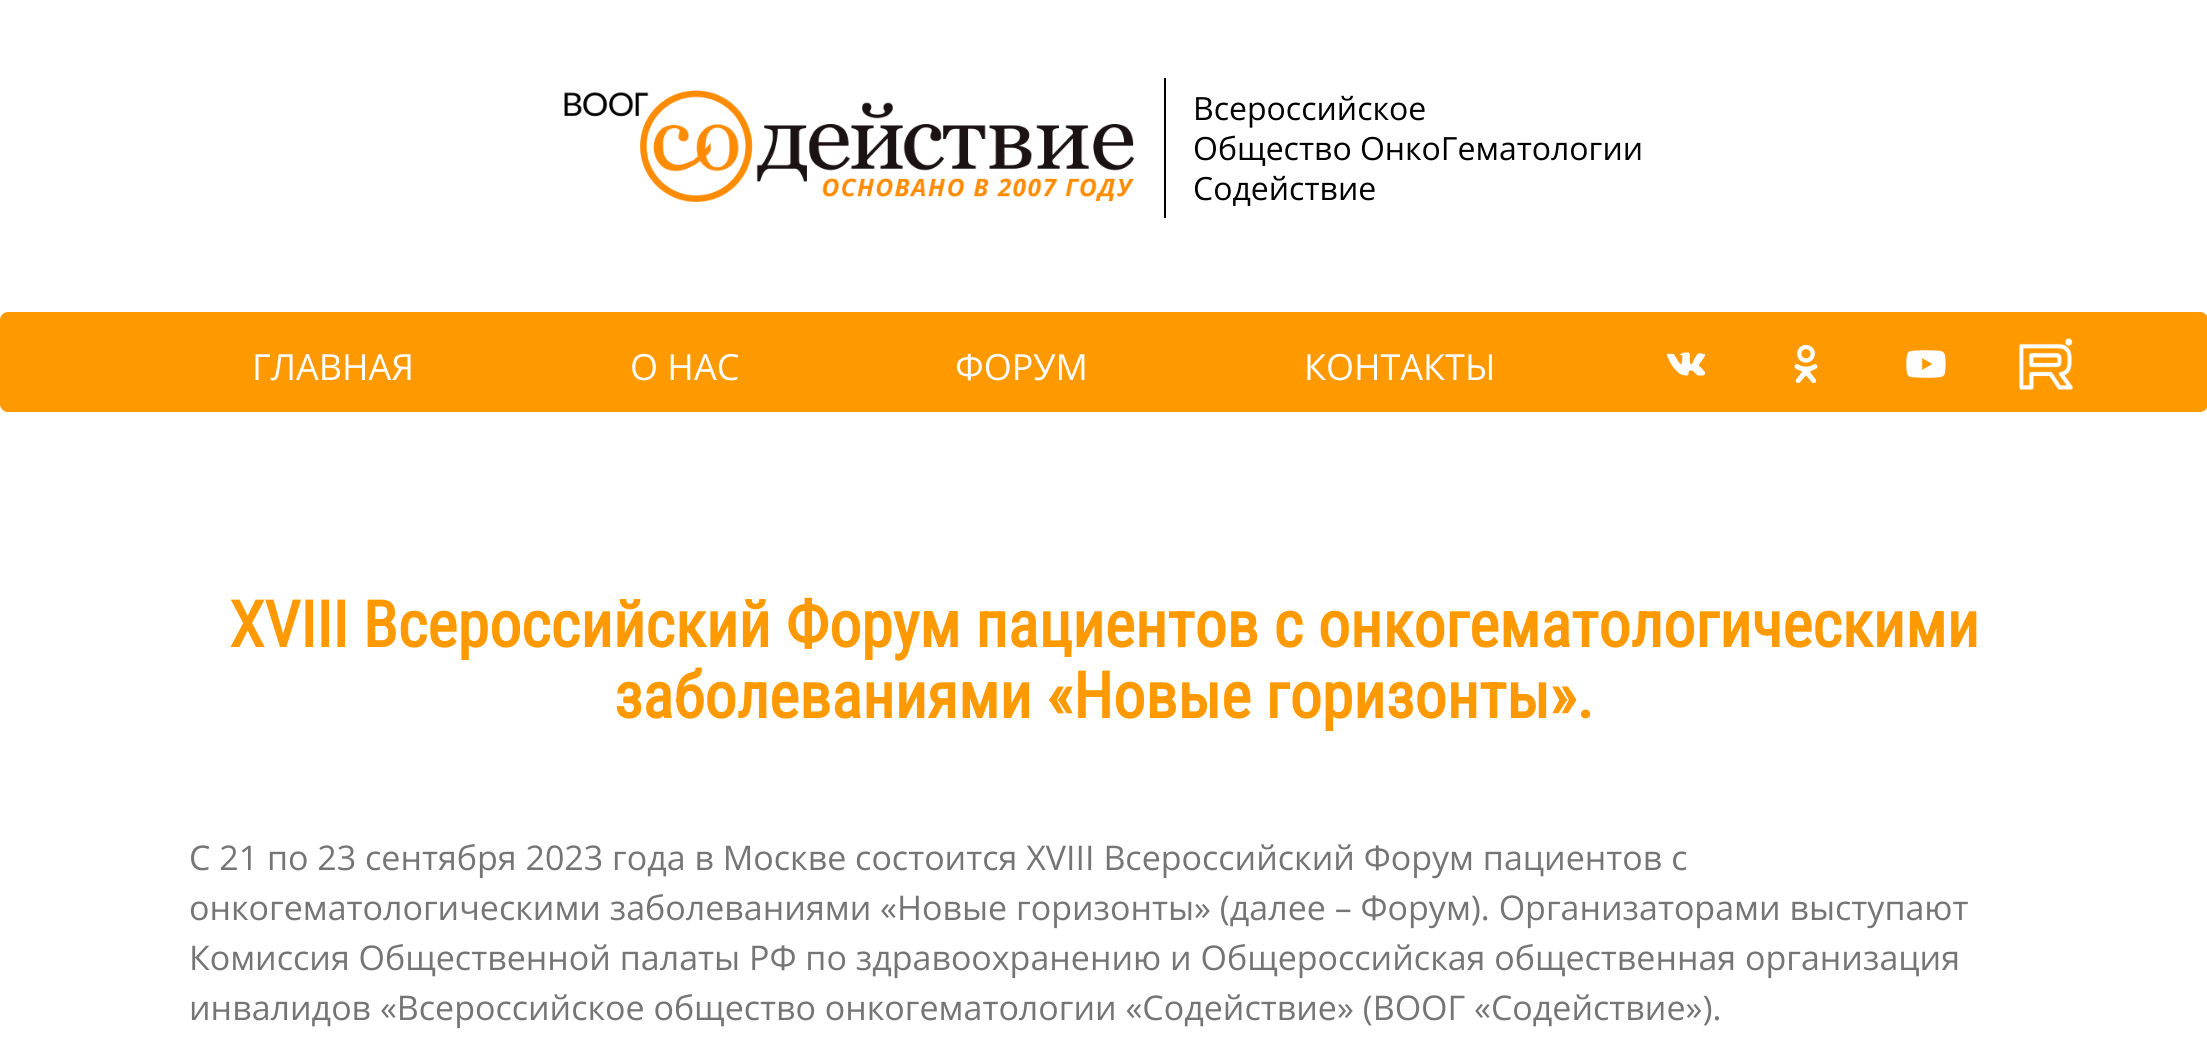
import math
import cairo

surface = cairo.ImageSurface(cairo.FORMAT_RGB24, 2207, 1050)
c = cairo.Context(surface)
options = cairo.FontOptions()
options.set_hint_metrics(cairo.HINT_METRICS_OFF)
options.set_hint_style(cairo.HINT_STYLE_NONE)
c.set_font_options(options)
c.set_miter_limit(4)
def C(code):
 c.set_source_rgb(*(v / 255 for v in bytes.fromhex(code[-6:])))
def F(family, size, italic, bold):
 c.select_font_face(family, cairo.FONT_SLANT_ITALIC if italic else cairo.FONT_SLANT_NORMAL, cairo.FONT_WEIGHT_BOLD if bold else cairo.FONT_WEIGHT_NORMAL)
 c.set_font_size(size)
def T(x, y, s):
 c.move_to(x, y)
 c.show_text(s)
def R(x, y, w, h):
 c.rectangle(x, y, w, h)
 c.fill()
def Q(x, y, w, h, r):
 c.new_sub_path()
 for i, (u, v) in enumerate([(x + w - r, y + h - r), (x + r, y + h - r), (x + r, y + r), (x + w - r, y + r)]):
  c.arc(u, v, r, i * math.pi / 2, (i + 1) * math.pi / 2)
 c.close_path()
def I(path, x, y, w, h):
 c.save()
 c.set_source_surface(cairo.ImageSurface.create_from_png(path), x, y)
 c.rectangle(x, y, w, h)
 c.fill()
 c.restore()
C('ffffff')
c.paint()
I('1.png',564,90,570,112)
C('000000')
R(1164,78,2,140)
F('Open Sans',32,0,0)
T(1193,120,'Всероссийское')
T(1193,160,'Общество ОнкоГематологии')
T(1193,200,'Содействие')
C('ff9900')
Q(0,312,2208,100,8)
c.fill()
F('Open Sans',36,0,0)
C('ffffff')
T(252,380,'ГЛАВНАЯ')
T(630,380,'О НАС')
T(955,380,'ФОРУМ')
T(1304,380,'КОНТАКТЫ')
I('2.png',1666,352,40,24)
I('3.png',1794,344,24,40)
I('4.png',1906,350,40,28)
I('5.png',2019,338,54,52)
F('Roboto Condensed',64,0,1)
C('ff9900')
T(229,647,'XVIII Всероссийский Форум пациентов с онкогематологическими')
T(614,718,'заболеваниями «Новые горизонты».')
F('Open Sans',34,0,0)
C('757575')
T(189,870,'С 21 по 23 сентября 2023 года в Москве состоится XVIII Всероссийский Форум пациентов с')
T(189,920,'онкогематологическими заболеваниями «Новые горизонты» (далее – Форум). Организаторами выступают')
T(189,970,'Комиссия Общественной палаты РФ по здравоохранению и Общероссийская общественная организация')
T(189,1020,'инвалидов «Всероссийское общество онкогематологии «Содействие» (ВООГ «Содействие»).')
surface.write_to_png('o.png')
